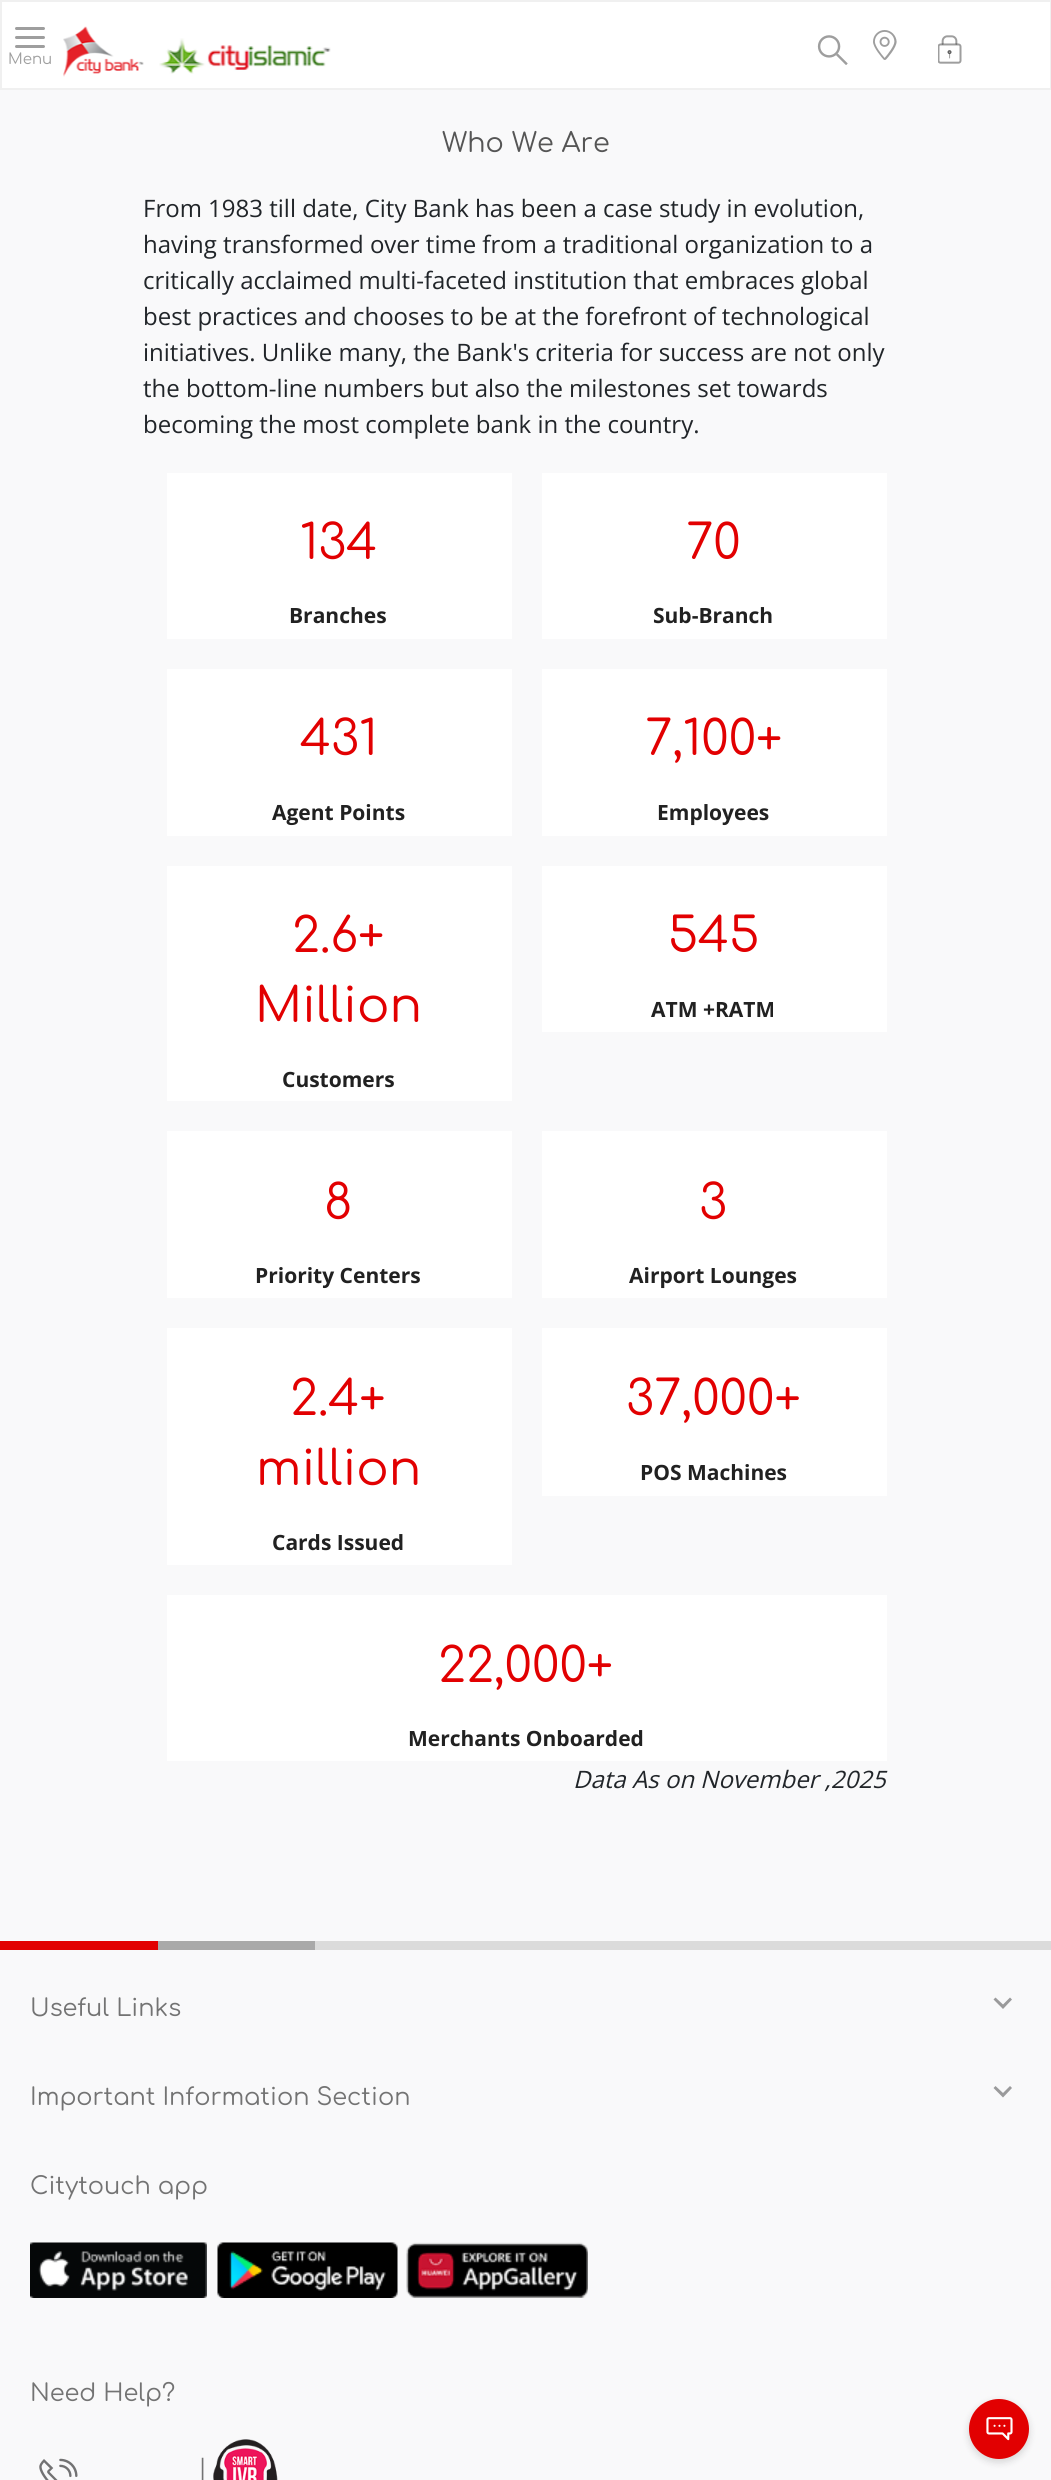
import math
import cairo

surface = cairo.ImageSurface(cairo.FORMAT_RGB24, 1051, 2480)
c = cairo.Context(surface)
options = cairo.FontOptions()
options.set_hint_metrics(cairo.HINT_METRICS_OFF)
options.set_hint_style(cairo.HINT_STYLE_NONE)
c.set_font_options(options)
c.set_miter_limit(4)
def C(code):
 c.set_source_rgb(*(v / 255 for v in bytes.fromhex(code[-6:])))
def F(family, size, italic, bold):
 c.select_font_face(family, cairo.FONT_SLANT_ITALIC if italic else cairo.FONT_SLANT_NORMAL, cairo.FONT_WEIGHT_BOLD if bold else cairo.FONT_WEIGHT_NORMAL)
 c.set_font_size(size)
def T(x, y, s):
 c.move_to(x, y)
 c.show_text(s)
def R(x, y, w, h):
 c.rectangle(x, y, w, h)
 c.fill()
def Q(x, y, w, h, r):
 c.new_sub_path()
 for i, (u, v) in enumerate([(x + w - r, y + h - r), (x + r, y + h - r), (x + r, y + r), (x + w - r, y + r)]):
  c.arc(u, v, r, i * math.pi / 2, (i + 1) * math.pi / 2)
 c.close_path()
def S(x, y, w, h, r, blur, alpha):
 c.push_group_with_content(cairo.CONTENT_ALPHA)
 c.set_operator(cairo.OPERATOR_SOURCE)
 for i in range(15, -16, -2):
  e = blur * i / 6
  if min(w, h) + 2 * e > 0:
   c.set_source_rgba(0, 0, 0, alpha * math.erfc((i - 1) / 8.5) / 2)
   Q(x - e, y - e, w + 2 * e, h + 2 * e, max(0, min(r + e + blur * .6, min(w, h) / 2 + e)))
   c.fill()
 c.mask(c.pop_group())
def I(path, x, y, w, h):
 c.save()
 c.set_source_surface(cairo.ImageSurface.create_from_png(path), x, y)
 c.rectangle(x, y, w, h)
 c.fill()
 c.restore()
C('f9f9fa')
c.paint()
C('ffffff')
c.rectangle(1,1,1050,88)
c.fill_preserve()
C('f0f0f0')
c.stroke()
C('9e9e9e')
Q(15,36,30,3,1.5)
c.fill()
Q(15,27,30,3,1.5)
c.fill()
Q(15,45,30,3,1.5)
c.fill()
F('Comfortaa',15,0,0)
T(8,64,'Menu')
I('1.png',63,26,81,51)
I('2.png',159,38,172,36)
I('3.png',817,35,31,30)
I('4.png',873,30,24,30)
I('5.png',938,35,24,29)
F('Comfortaa',27,0,0)
C('555555')
T(442,152,'Who We Are')
F('Open Sans',24,0,0)
C('212529')
T(143,217,'From 1983 till date, City Bank has been a case study in evolution,')
T(143,253,'having transformed over time from a traditional organization to a')
T(143,289,'critically acclaimed multi-faceted institution that embraces global')
T(143,325,'best practices and chooses to be at the forefront of technological')
T(143,361,'initiatives. Unlike many, the Bank\'s criteria for success are not only')
T(143,397,'the bottom-line numbers but also the milestones set towards')
T(143,433,'becoming the most complete bank in the country.')
C('ffffff')
R(167,473,345,166)
F('Comfortaa',48,0,0)
C('e20001')
T(300,559,'134')
F('Open Sans',21,0,1)
C('212121')
T(289,623,'Branches')
C('ffffff')
R(542,473,345,166)
F('Comfortaa',48,0,0)
C('e20001')
T(686,559,'70')
F('Open Sans',21,0,1)
C('212121')
T(653,623,'Sub-Branch')
C('ffffff')
R(167,669,345,167)
F('Comfortaa',48,0,0)
C('e20001')
T(300,755,'431')
F('Open Sans',21,0,1)
C('212121')
T(272,820,'Agent Points')
C('ffffff')
R(542,669,345,167)
F('Comfortaa',48,0,0)
C('e20001')
T(645,755,'7,100+')
F('Open Sans',21,0,1)
C('212121')
T(657,820,'Employees')
C('ffffff')
R(167,866,345,235)
F('Comfortaa',48,0,0)
C('e20001')
T(292,952,'2.6+')
T(255,1022,'Million')
F('Open Sans',21,0,1)
C('212121')
T(282,1087,'Customers')
C('ffffff')
R(542,866,345,166)
F('Comfortaa',48,0,0)
C('e20001')
T(668,952,'545')
F('Open Sans',21,0,1)
C('212121')
T(651,1017,'ATM +RATM')
C('ffffff')
R(167,1131,345,167)
F('Comfortaa',48,0,0)
C('e20001')
T(324,1219,'8')
F('Open Sans',21,0,1)
C('212121')
T(255,1283,'Priority Centers')
C('ffffff')
R(542,1131,345,167)
F('Comfortaa',48,0,0)
C('e20001')
T(699,1219,'3')
F('Open Sans',21,0,1)
C('212121')
T(629,1283,'Airport Lounges')
C('ffffff')
R(167,1328,345,237)
F('Comfortaa',48,0,0)
C('e20001')
T(290,1415,'2.4+')
T(256,1485,'million')
F('Open Sans',21,0,1)
C('212121')
T(272,1550,'Cards Issued')
C('ffffff')
R(542,1328,345,168)
F('Comfortaa',48,0,0)
C('e20001')
T(626,1415,'37,000+')
F('Open Sans',21,0,1)
C('212121')
T(640,1480,'POS Machines')
C('ffffff')
R(167,1595,720,166)
F('Comfortaa',48,0,0)
C('e20001')
T(438,1682,'22,000+')
F('Open Sans',21,0,1)
C('212121')
T(408,1746,'Merchants Onboarded')
F('Open Sans',24,1,0)
C('212529')
T(573,1788,'Data As on November ,2025')
C('dbdbdb')
R(315,1941,736,9)
C('e20001')
R(0,1941,158,9)
C('a9a9a9')
R(158,1941,157,9)
F('Comfortaa',24,0,0)
C('737373')
T(30,2016,'Useful Links')
C('9a9a9b')
c.new_path()
c.move_to(1010,1997.5)
c.line_to(1003,2004.5)
c.line_to(995.5,1997.5)
c.line_to(993.5,1999.5)
c.line_to(1003,2009)
c.line_to(1012,1999.5)
c.close_path()
c.fill()
C('737373')
T(30,2105,'Important Information Section')
C('9a9a9b')
c.new_path()
c.move_to(1010,2086)
c.line_to(1003,2093)
c.line_to(995.5,2086)
c.line_to(993.5,2088)
c.line_to(1003,2097.5)
c.line_to(1012,2088)
c.close_path()
c.fill()
C('737373')
T(30,2194,'Citytouch app')
I('6.png',30,2242,177,56)
I('7.png',217,2242,181,56)
I('8.png',406,2242,182,56)
T(30,2401,'Need Help?')
I('9.png',39,2458,39,22)
F('Open Sans',24,0,0)
T(196,2476,'|')
I('10.png',213,2439,65,41)
C('000000')
S(969,2402,60,60,30,4,.15)
C('e20001')
c.arc(999,2429,30,0,2 * math.pi)
c.fill()
I('11.png',986,2417,27,24)
surface.write_to_png('o.png')
